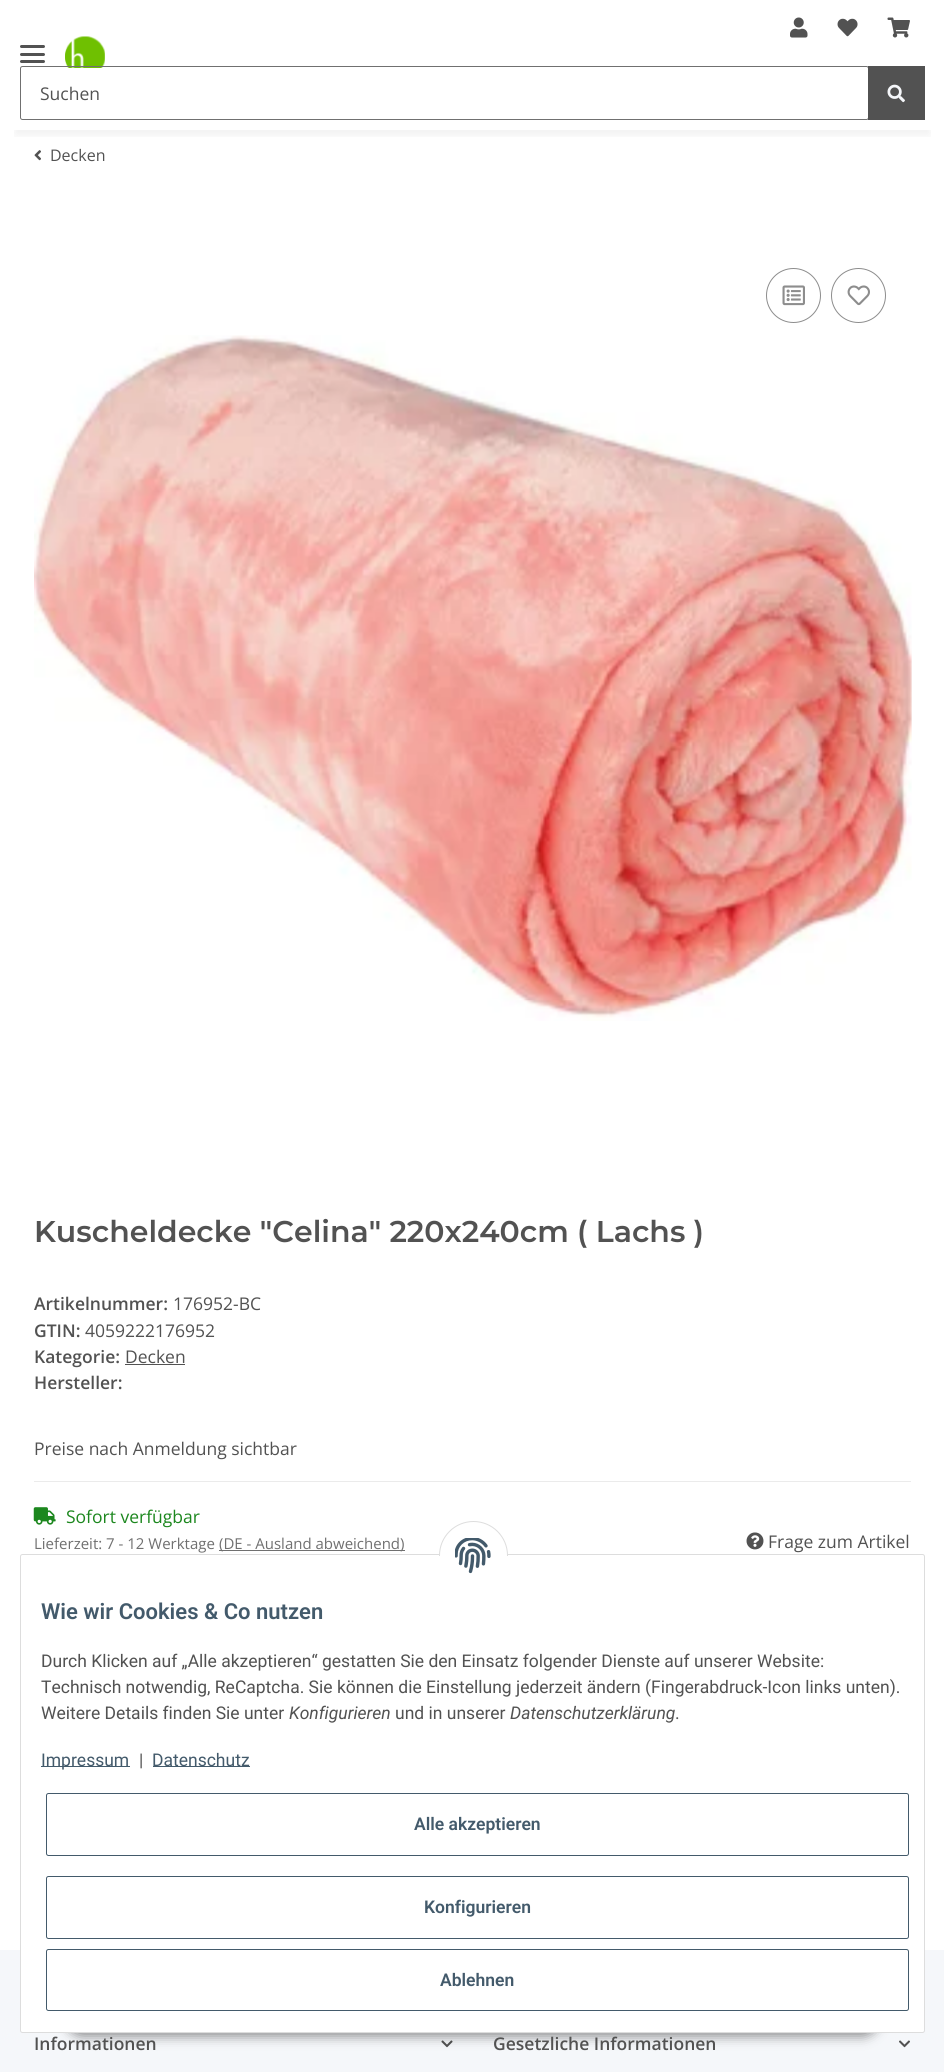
import math
import cairo

surface = cairo.ImageSurface(cairo.FORMAT_RGB24, 944, 2072)
c = cairo.Context(surface)
options = cairo.FontOptions()
options.set_hint_metrics(cairo.HINT_METRICS_OFF)
options.set_hint_style(cairo.HINT_STYLE_NONE)
c.set_font_options(options)
c.set_miter_limit(4)
def C(code):
 c.set_source_rgb(*(v / 255 for v in bytes.fromhex(code[-6:])))
def F(family, size, italic, bold):
 c.select_font_face(family, cairo.FONT_SLANT_ITALIC if italic else cairo.FONT_SLANT_NORMAL, cairo.FONT_WEIGHT_BOLD if bold else cairo.FONT_WEIGHT_NORMAL)
 c.set_font_size(size)
def T(x, y, s):
 c.move_to(x, y)
 c.show_text(s)
def R(x, y, w, h):
 c.rectangle(x, y, w, h)
 c.fill()
def Q(x, y, w, h, r):
 c.new_sub_path()
 for i, (u, v) in enumerate([(x + w - r, y + h - r), (x + r, y + h - r), (x + r, y + r), (x + w - r, y + r)]):
  c.arc(u, v, r, i * math.pi / 2, (i + 1) * math.pi / 2)
 c.close_path()
def S(x, y, w, h, r, blur, alpha):
 c.push_group_with_content(cairo.CONTENT_ALPHA)
 c.set_operator(cairo.OPERATOR_SOURCE)
 for i in range(15, -16, -2):
  e = blur * i / 6
  if min(w, h) + 2 * e > 0:
   c.set_source_rgba(0, 0, 0, alpha * math.erfc((i - 1) / 8.5) / 2)
   Q(x - e, y - e, w + 2 * e, h + 2 * e, max(0, min(r + e + blur * .6, min(w, h) / 2 + e)))
   c.fill()
 c.mask(c.pop_group())
def I(path, x, y, w, h):
 c.save()
 c.set_source_surface(cairo.ImageSurface.create_from_png(path), x, y)
 c.rectangle(x, y, w, h)
 c.fill()
 c.restore()
C('ffffff')
c.paint()
I('6.png',34,150,7,11)
c.save()
c.rectangle(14,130,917,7)
c.clip()
C('000000')
S(15,35,915,100,0,5.5,.06)
c.restore()
I('1.png',790,17,18,21)
I('2.png',837,18,21,19)
I('3.png',887,17,23,21)
C('525252')
Q(20,53,25,3,1.5)
c.fill()
Q(20,45,25,3,1.5)
c.fill()
Q(20,60,25,3,1.5)
c.fill()
I('4.png',65,36,40,32)
Q(20.5,66.5,848,53,2)
C('707070')
c.set_line_width(1)
c.stroke()
F('Open Sans',17.5,0,0)
C('525252')
T(40,100,'Suchen')
R(868,66,57,54)
I('5.png',887,84,18,19)
F('Open Sans',16,0,0)
T(50,161,'Decken')
c.new_path()
c.arc(793.5,295.5,27,0,2 * math.pi)
C('8d8d8d')
c.stroke()
I('7.png',782,285,23,21)
c.arc(858.5,295.5,27,0,2 * math.pi)
c.stroke()
I('8.png',847,285,23,21)
I('9.png',34,335,878,686)
F('Montserrat SemiBold',30,0,0)
C('525252')
T(34,1242,'Kuscheldecke "Celina" 220x240cm ( Lachs )')
F('Open Sans SemiBold',17.5,0,0)
T(34,1310,'Artikelnummer:')
F('Open Sans',17.5,0,0)
T(173,1310,'176952-BC')
F('Open Sans SemiBold',17.5,0,0)
T(34,1337,'GTIN:')
F('Open Sans',17.5,0,0)
T(85,1337,'4059222176952')
F('Open Sans SemiBold',17.5,0,0)
T(34,1363,'Kategorie:')
F('Open Sans',17.5,0,0)
T(125,1363,'Decken')
R(125,1364,60,1)
F('Open Sans SemiBold',17.5,0,0)
T(34,1389,'Hersteller:')
F('Open Sans',17.5,0,0)
T(34,1455,'Preise nach Anmeldung sichtbar')
C('ebebeb')
R(34,1481,877,1)
I('10.png',33,1507,23,18)
C('1c871e')
T(66,1523,'Sofort verfügbar')
F('Open Sans',15,0,0)
C('707070')
T(34,1549,'Lieferzeit: 7 - 12 Werktage')
R(219,1550,186,1)
T(219,1549,'(DE - Ausland abweichend)')
I('11.png',746,1532,18,18)
F('Open Sans',17.5,0,0)
C('525252')
T(768,1548,'Frage zum Artikel')
C('f5f7fa')
R(0,1950,944,122)
I('13.png',441,2040,12,8)
C('000000')
S(66,1996,813,40,20,6,.45)
C('ffffff')
Q(20.5,1554.5,904,478,2)
c.fill_preserve()
C('dddddd')
c.stroke()
C('ffffff')
c.arc(473.5,1555.5,34,0,2 * math.pi)
c.fill_preserve()
C('dddddd')
c.stroke()
C('ffffff')
R(439,1556,69,34)
I('12.png',455,1538,36,36)
F('Roboto SemiBold',22,0,0)
C('435a6b')
T(41,1619,'Wie wir Cookies & Co nutzen')
F('Roboto',17.5,0,0)
C('525252')
T(41,1667,'Durch Klicken auf „Alle akzeptieren“ gestatten Sie den Einsatz folgender Dienste auf unserer Website:')
T(41,1693,'Technisch notwendig, ReCaptcha. Sie können die Einstellung jederzeit ändern (Fingerabdruck-Icon links unten).')
T(41,1719,'Weitere Details finden Sie unter')
F('Roboto',17.5,1,0)
T(289,1719,'Konfigurieren')
F('Roboto',17.5,0,0)
T(395,1719,'und in unserer')
F('Roboto',17.5,1,0)
T(510,1719,'Datenschutzerklärung')
F('Roboto',17.5,0,0)
T(675,1719,'.')
C('435a6b')
R(41,1766,89,1)
T(41,1766,'Impressum')
C('525252')
T(139,1766,'|')
C('435a6b')
R(153,1766,97,1)
T(152,1766,'Datenschutz')
Q(46.5,1793.5,862,62,2)
c.stroke()
F('Roboto SemiBold',17.5,0,0)
T(414,1830,'Alle akzeptieren')
Q(46.5,1876.5,862,62,2)
c.stroke()
T(424,1913,'Konfigurieren')
Q(46.5,1949.5,862,61,2)
c.stroke()
T(440,1986,'Ablehnen')
F('Open Sans SemiBold',17.5,0,0)
C('525252')
T(34,2050,'Informationen')
T(493,2050,'Gesetzliche Informationen')
I('14.png',899,2040,11,8)
surface.write_to_png('o.png')
